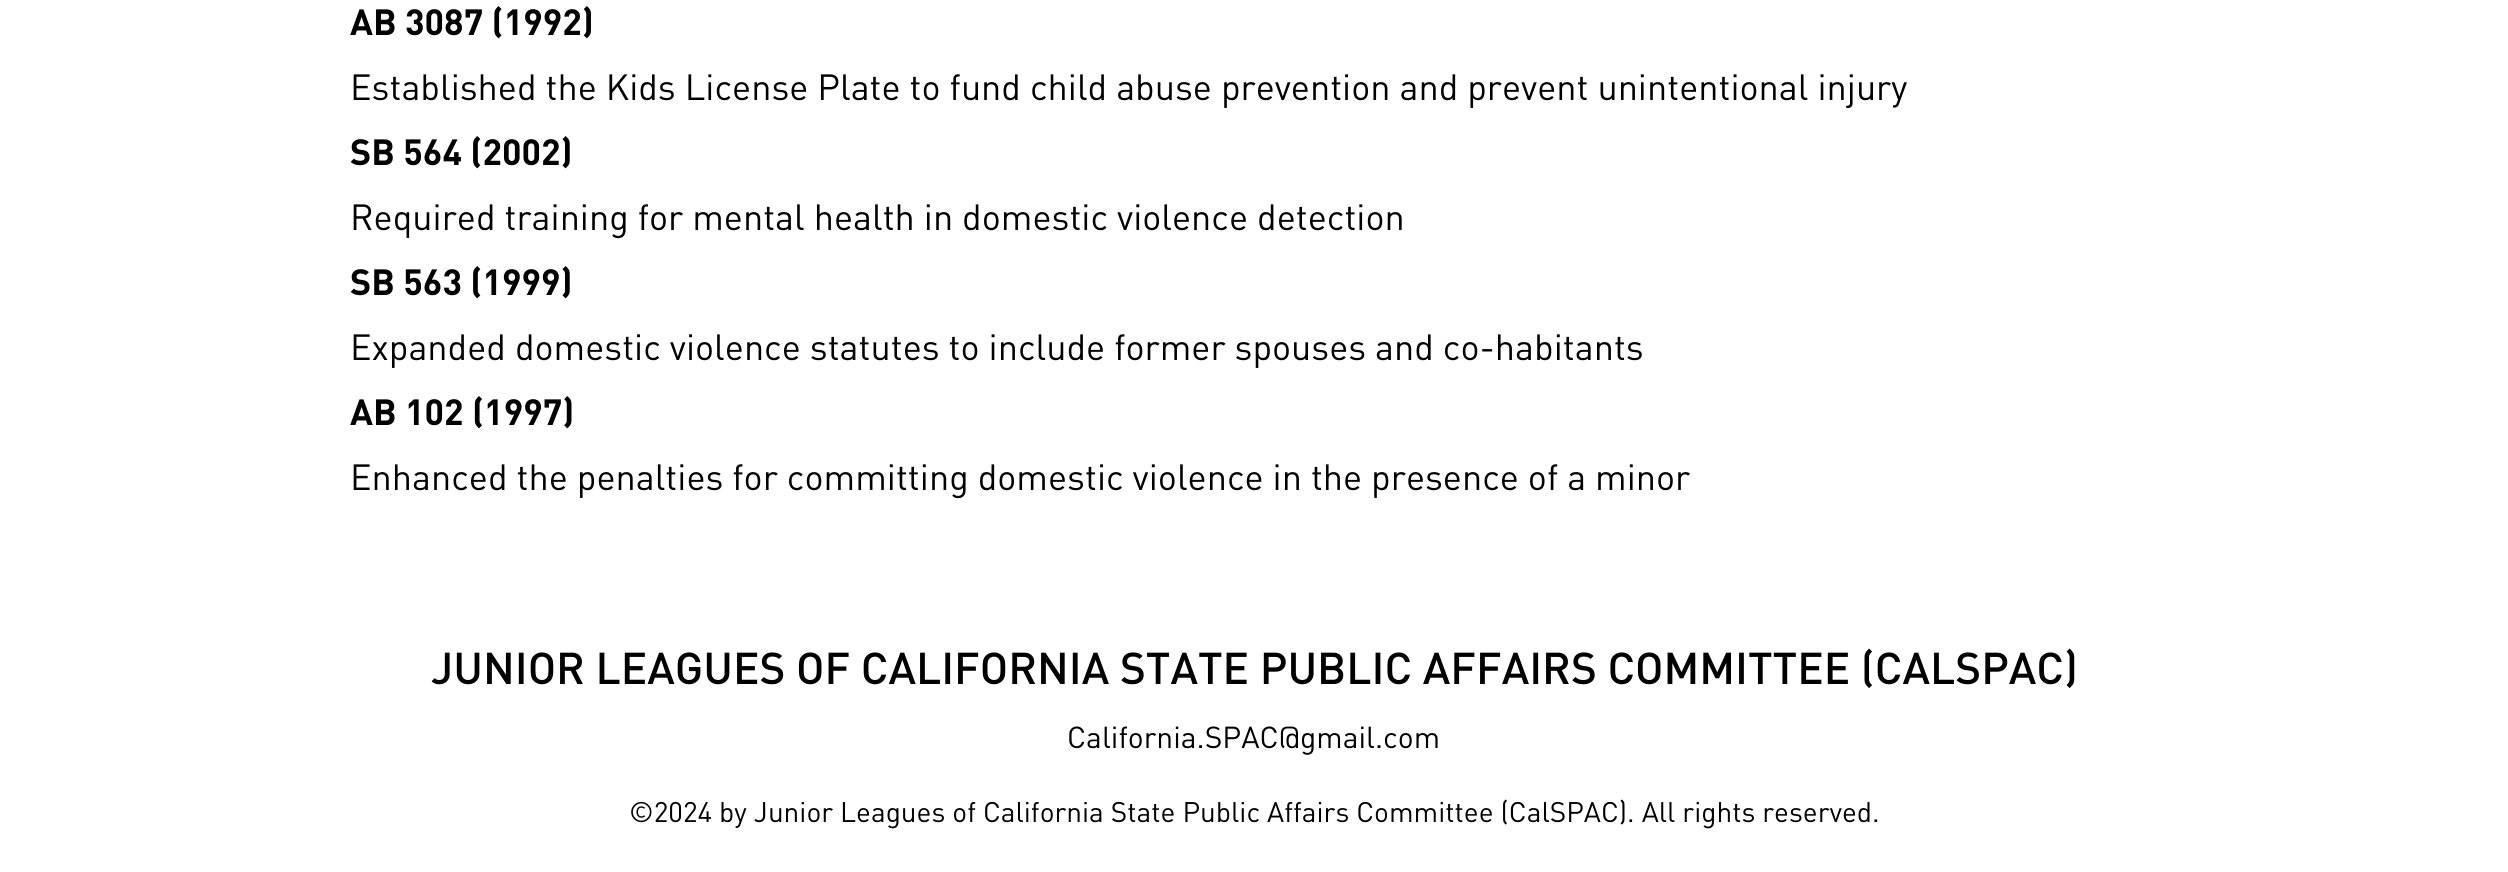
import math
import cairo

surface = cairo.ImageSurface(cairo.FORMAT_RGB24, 2508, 872)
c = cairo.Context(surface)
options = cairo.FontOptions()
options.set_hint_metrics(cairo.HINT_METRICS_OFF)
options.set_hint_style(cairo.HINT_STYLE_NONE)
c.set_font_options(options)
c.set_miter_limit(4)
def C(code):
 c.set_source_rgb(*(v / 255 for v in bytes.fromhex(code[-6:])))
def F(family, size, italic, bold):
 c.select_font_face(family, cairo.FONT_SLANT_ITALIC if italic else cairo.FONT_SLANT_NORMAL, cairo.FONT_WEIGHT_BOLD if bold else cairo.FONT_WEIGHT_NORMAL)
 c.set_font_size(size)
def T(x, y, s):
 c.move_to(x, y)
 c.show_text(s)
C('ffffff')
c.paint()
F('DIN',36,0,1)
C('000000')
T(350,35,'AB 3087 (1992)')
F('DIN',36,0,0)
T(350,100,'Established the Kids License Plate to fund child abuse prevention and prevent unintentional injury')
F('DIN',36,0,1)
T(350,165,'SB 564 (2002)')
F('DIN',36,0,0)
T(350,230,'Required training for mental health in domestic violence detection')
F('DIN',36,0,1)
T(350,295,'SB 563 (1999)')
F('DIN',36,0,0)
T(350,360,'Expanded domestic violence statutes to include former spouses and co-habitants')
F('DIN',36,0,1)
T(350,425,'AB 102 (1997)')
F('DIN',36,0,0)
T(350,490,'Enhanced the penalties for committing domestic violence in the presence of a minor')
F('DIN Medium',44,0,0)
T(431,684,'JUNIOR LEAGUES OF CALIFORNIA STATE PUBLIC AFFAIRS COMMITTEE (CALSPAC)')
F('DIN',30,0,0)
T(1067,748,'California.SPAC@gmail.com')
F('DIN',28,0,0)
T(629,822,'©2024 by Junior Leagues of California State Public Affairs Committee (CalSPAC). All rights reserved.')
surface.write_to_png('o.png')
